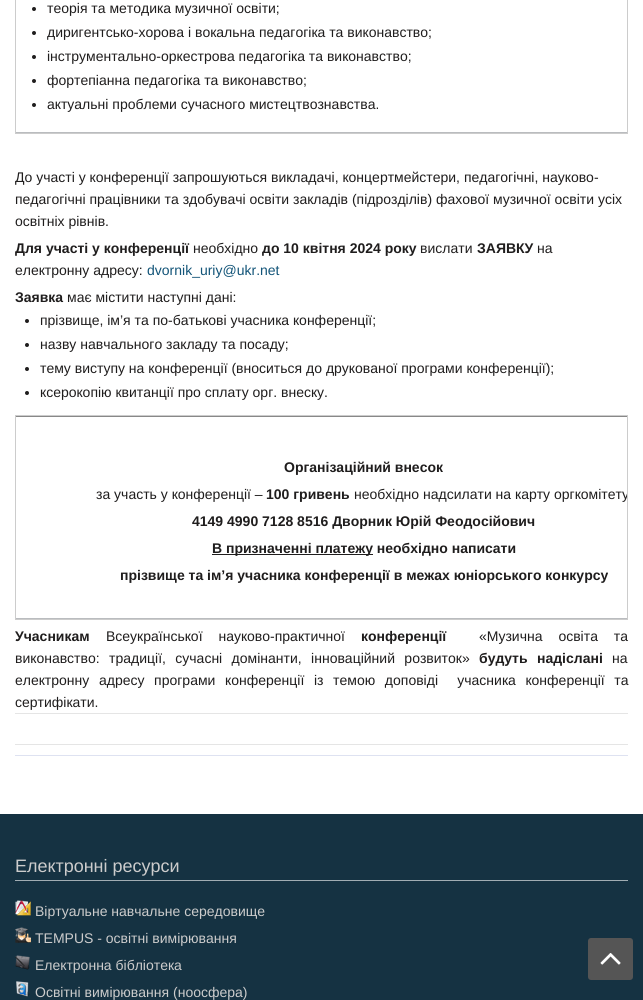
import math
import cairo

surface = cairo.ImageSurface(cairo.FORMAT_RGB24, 643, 1000)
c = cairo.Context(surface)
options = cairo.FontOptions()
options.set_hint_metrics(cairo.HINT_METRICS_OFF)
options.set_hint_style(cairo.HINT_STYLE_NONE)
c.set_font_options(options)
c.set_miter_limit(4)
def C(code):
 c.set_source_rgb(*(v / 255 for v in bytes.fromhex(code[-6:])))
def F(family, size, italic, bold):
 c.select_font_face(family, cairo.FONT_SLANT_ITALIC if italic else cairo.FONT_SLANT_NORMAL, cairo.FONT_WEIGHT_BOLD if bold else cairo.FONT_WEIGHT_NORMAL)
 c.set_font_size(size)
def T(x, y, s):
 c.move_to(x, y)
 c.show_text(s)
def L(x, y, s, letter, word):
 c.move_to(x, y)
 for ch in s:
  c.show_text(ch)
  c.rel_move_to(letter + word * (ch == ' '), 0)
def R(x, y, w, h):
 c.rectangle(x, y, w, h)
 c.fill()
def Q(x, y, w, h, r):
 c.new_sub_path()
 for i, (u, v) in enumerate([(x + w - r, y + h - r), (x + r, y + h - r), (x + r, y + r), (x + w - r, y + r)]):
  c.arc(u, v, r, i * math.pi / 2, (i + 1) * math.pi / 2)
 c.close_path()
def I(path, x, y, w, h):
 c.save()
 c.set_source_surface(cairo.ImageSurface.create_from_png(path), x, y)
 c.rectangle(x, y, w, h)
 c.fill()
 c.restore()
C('ffffff')
c.paint()
c.rectangle(15.5,-.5,612,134)
C('cccccc')
c.set_line_width(1)
c.stroke()
C('babcbf')
R(16,132,611,1)
C('1f1d1d')
c.arc(34,9,2,0,2 * math.pi)
c.fill()
F('Liberation Sans',14,0,0)
T(47,13,'теорія та методика музичної освіти;')
c.new_path()
c.arc(34,33,2,0,2 * math.pi)
c.fill()
T(47,37,'диригентсько-хорова і вокальна педагогіка та виконавство;')
c.new_path()
c.arc(34,57,2,0,2 * math.pi)
c.fill()
T(47,61,'інструментально-оркестрова педагогіка та виконавство;')
c.new_path()
c.arc(34,81,2,0,2 * math.pi)
c.fill()
T(47,85,'фортепіанна педагогіка та виконавство;')
c.new_path()
c.arc(34,105,2,0,2 * math.pi)
c.fill()
T(47,109,'актуальні проблеми сучасного мистецтвознавства.')
T(15,182,'До участі у конференції запрошуються викладачі, концертмейстери, педагогічні, науково-')
T(15,204,'педагогічні працівники та здобувачі освіти закладів (підрозділів) фахової музичної освіти усіх')
T(15,226,'освітніх рівнів.')
F('Liberation Sans',14,0,1)
T(15,253,'Для участі у конференції')
F('Liberation Sans',14,0,0)
T(193,253,'необхідно')
F('Liberation Sans',14,0,1)
T(262,253,'до 10 квітня 2024 року')
F('Liberation Sans',14,0,0)
T(420,253,'вислати')
F('Liberation Sans',14,0,1)
T(477,253,'ЗАЯВКУ')
F('Liberation Sans',14,0,0)
T(537,253,'на')
T(15,275,'електронну адресу:')
C('125478')
T(147,275,'dvornik_uriy@ukr.net')
F('Liberation Sans',14,0,1)
C('1f1d1d')
T(15,302,'Заявка')
F('Liberation Sans',14,0,0)
T(67,302,'має містити наступні дані:')
c.new_path()
c.arc(27,321,2,0,2 * math.pi)
c.fill()
T(40,325,'прізвище, ім’я та по-батькові учасника конференції;')
c.new_path()
c.arc(27,345,2,0,2 * math.pi)
c.fill()
T(40,349,'назву навчального закладу та посаду;')
c.new_path()
c.arc(27,369,2,0,2 * math.pi)
c.fill()
T(40,373,'тему виступу на конференції (вноситься до друкованої програми конференції);')
c.new_path()
c.arc(27,393,2,0,2 * math.pi)
c.fill()
T(40,397,'ксерокопію квитанції про сплату орг. внеску.')
c.rectangle(15.5,415.5,612,204)
C('cccccc')
c.stroke()
C('888888')
R(16,416,611,1)
C('babcbf')
R(16,618,611,1)
F('Liberation Sans',14,0,1)
C('1f1d1d')
T(284,472,'Організаційний внесок')
F('Liberation Sans',14,0,0)
T(96,499,'за участь у конференції –')
F('Liberation Sans',14,0,1)
T(266,499,'100 гривень')
c.save()
c.rectangle(16,416,611,203)
c.clip()
F('Liberation Sans',14,0,0)
T(354,499,'необхідно надсилати на карту оргкомітету')
c.restore()
T(192,526,'4149 4990 7128 8516 Дворник Юрій Феодосійович')
R(212,554,161,1)
T(212,553,'В призначенні платежу необхідно написати')
T(120,580,'прізвище та ім’я учасника конференції в межах юніорського конкурсу')
T(15,641,'Учасникам')
F('Liberation Sans',14,0,0)
L(106,641,'Всеукраїнської науково-практичної',0,12)
F('Liberation Sans',14,0,1)
T(361,641,'конференції')
F('Liberation Sans',14,0,0)
L(479,641,'«Музична освіта та',0,12)
L(15,663,'виконавство: традиції, сучасні домінанти, інноваційний розвиток»',0,5.5)
F('Liberation Sans',14,0,1)
L(479,663,'будуть надіслані',0,5.5)
F('Liberation Sans',14,0,0)
T(612,663,'на')
L(15,685,'електронну адресу програми конференції із темою доповіді  учасника конференції та',0,5.75)
T(15,707,'сертифікати.')
C('e5e5e5')
R(15,713,613,1)
R(15,744,613,1)
C('dee2f1')
R(15,755,613,1)
C('153242')
R(0,814,643,186)
C('a1adb3')
R(15,880,613,1)
F('Liberation Sans',18,0,0)
C('cccccc')
T(15,872,'Електронні ресурси')
I('1.png',15,900,16,16)
F('Liberation Sans',14,0,0)
T(35,916,'Віртуальне навчальне середовище')
I('2.png',15,927,16,16)
T(35,943,'TEMPUS - освітні вимірювання')
I('3.png',15,955,15,15)
T(35,970,'Електронна бібліотека')
I('4.png',16,981,14,16)
T(35,997,'Освітні вимірювання (ноосфера)')
C('555555')
Q(588,938,45,42,3)
c.fill()
I('5.png',600,953,21,12)
surface.write_to_png('o.png')
